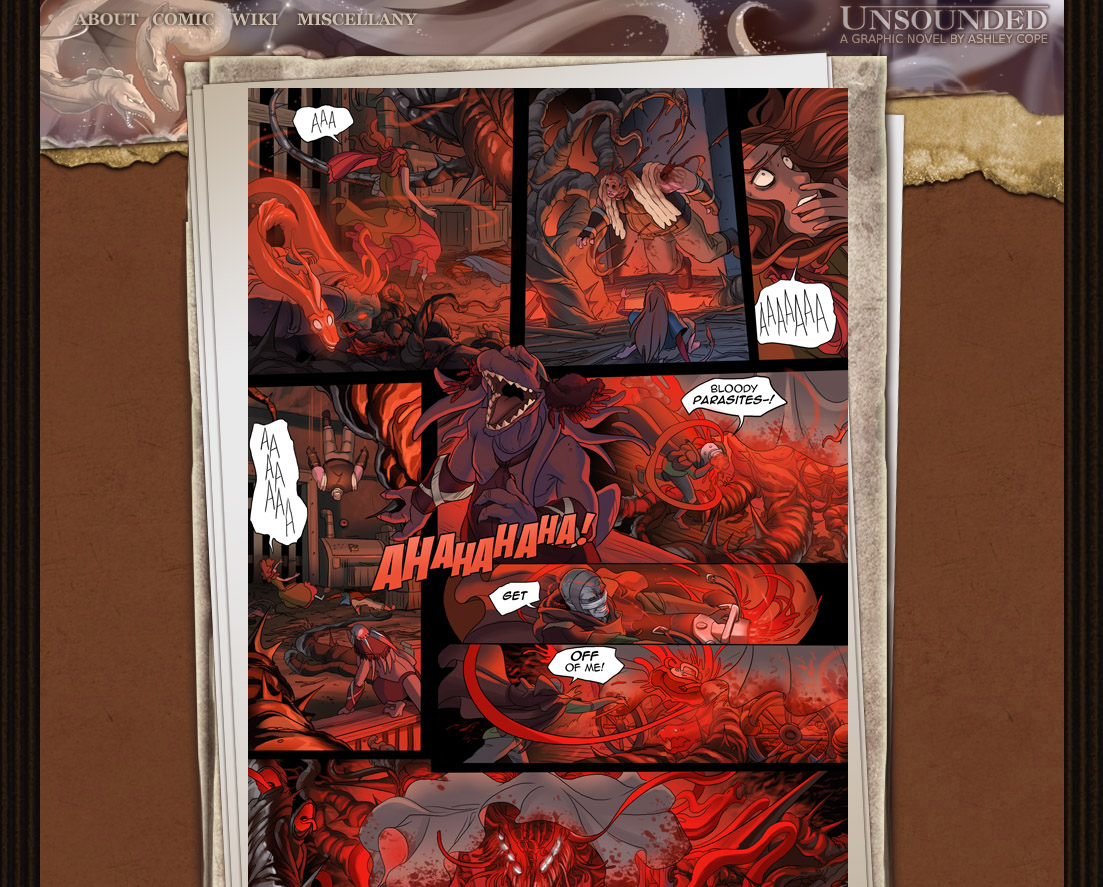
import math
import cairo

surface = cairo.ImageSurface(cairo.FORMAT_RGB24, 1103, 887)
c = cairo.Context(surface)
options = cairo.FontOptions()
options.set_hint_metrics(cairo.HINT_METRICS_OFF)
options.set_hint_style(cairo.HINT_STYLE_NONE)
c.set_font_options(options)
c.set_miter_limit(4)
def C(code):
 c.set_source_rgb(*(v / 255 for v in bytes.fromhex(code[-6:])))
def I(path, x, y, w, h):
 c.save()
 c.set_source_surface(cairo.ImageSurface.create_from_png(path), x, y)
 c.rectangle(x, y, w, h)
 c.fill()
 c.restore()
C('ffffff')
c.paint()
I('1.png',0,0,1103,887)
I('2.png',40,0,1024,88)
I('3.png',71,10,71,19)
I('4.png',149,9,68,20)
I('5.png',229,10,51,19)
I('6.png',295,10,125,19)
I('7.png',838,2,213,45)
I('8.png',40,88,208,799)
I('9.png',248,88,600,799)
I('10.png',848,88,216,799)
surface.write_to_png('o.png')
